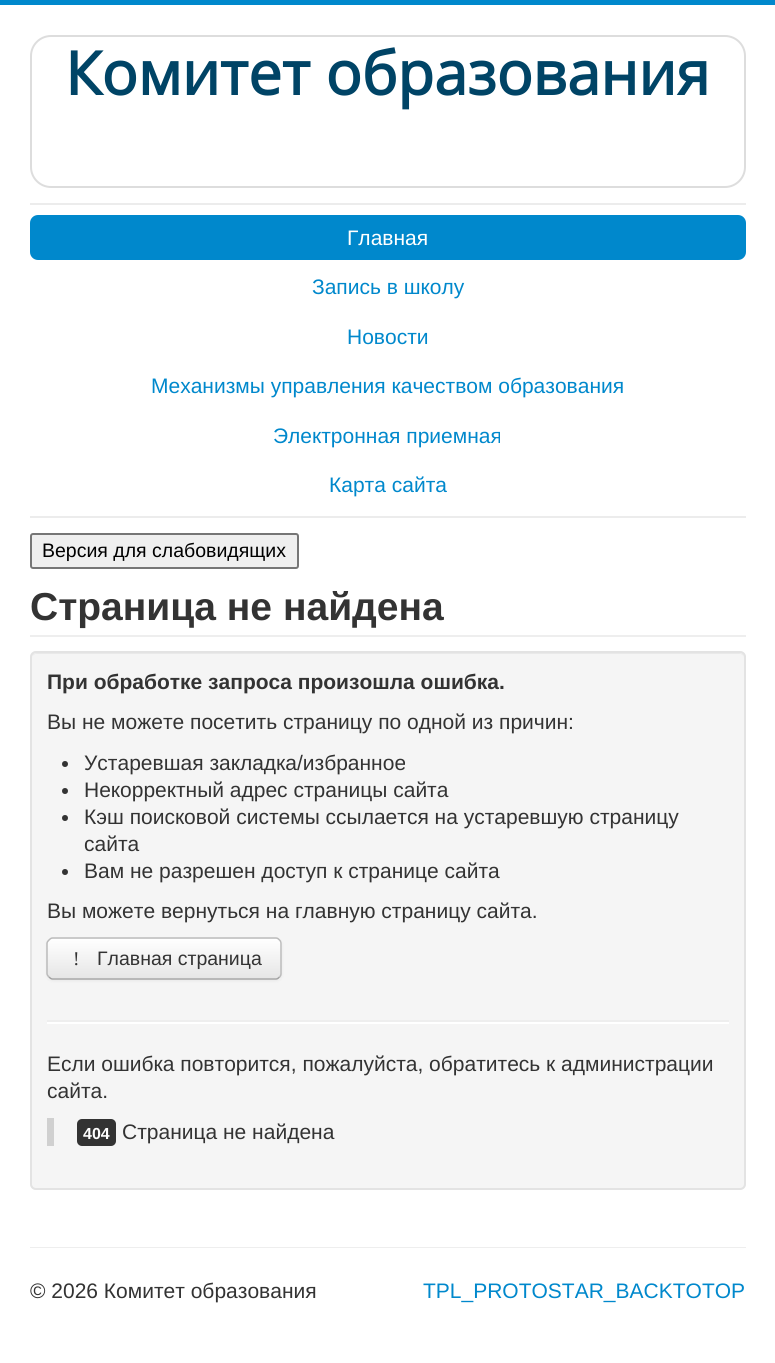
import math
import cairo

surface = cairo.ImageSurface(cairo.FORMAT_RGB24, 775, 1363)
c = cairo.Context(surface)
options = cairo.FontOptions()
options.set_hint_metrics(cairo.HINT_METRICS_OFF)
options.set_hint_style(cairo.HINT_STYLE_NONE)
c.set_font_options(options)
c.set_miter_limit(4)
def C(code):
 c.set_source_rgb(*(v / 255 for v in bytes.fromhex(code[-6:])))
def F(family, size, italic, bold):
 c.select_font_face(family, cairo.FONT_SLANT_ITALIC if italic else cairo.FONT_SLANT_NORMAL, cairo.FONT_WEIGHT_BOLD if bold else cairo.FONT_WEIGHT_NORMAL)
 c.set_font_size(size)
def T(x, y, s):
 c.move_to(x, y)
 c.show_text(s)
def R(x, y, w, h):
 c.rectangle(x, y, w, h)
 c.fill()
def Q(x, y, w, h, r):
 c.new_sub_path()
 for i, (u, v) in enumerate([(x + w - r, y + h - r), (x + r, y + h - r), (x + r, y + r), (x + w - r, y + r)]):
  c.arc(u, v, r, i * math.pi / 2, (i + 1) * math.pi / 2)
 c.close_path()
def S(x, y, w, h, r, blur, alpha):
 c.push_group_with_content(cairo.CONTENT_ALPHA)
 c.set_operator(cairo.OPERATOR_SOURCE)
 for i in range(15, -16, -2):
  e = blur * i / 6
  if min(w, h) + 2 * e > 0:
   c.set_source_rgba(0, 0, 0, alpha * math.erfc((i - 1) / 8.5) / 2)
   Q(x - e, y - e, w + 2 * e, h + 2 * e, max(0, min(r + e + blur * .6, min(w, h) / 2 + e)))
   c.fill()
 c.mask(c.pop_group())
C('ffffff')
c.paint()
C('0088cc')
R(0,0,775,5)
Q(31,36,714,151,20)
C('dddddd')
c.stroke()
F('Open Sans',60,0,1)
C('004466')
T(65,95,'Комитет образования')
C('ececec')
R(30,203,716,2)
R(30,516,716,2)
C('0088cc')
Q(30,215,716,45,8)
c.fill()
F('Liberation Sans',21,0,0)
C('ffffff')
T(347,245,'Главная')
C('0088cc')
T(312,294,'Запись в школу')
T(347,344,'Новости')
T(151,393,'Механизмы управления качеством образования')
T(273,443,'Электронная приемная')
T(329,492,'Карта сайта')
C('efefef')
Q(31,534,267,34,2)
c.fill_preserve()
C('767676')
c.stroke()
F('Liberation Sans',19.5,0,0)
C('000000')
T(42,557,'Версия для слабовидящих')
C('eeeeee')
R(30,635,716,2)
F('Liberation Sans',39,0,1)
C('333333')
T(30,620,'Страница не найдена')
C('f5f5f5')
Q(30,651,716,539,6)
c.fill()
C('e9e9e9')
c.new_path()
c.move_to(36,654)
c.line_to(740,654)
c.curve_to(742,654,744,656,744,658)
c.curve_to(744,655,742,653,739,653)
c.line_to(37,653)
c.curve_to(34,653,32,655,32,658)
c.curve_to(32,656,34,654,36,654)
c.close_path()
c.fill()
Q(31,652,714,537,5)
C('e3e3e3')
c.stroke()
F('Liberation Sans',21,0,1)
C('333333')
T(47,689,'При обработке запроса произошла ошибка.')
F('Liberation Sans',21,0,0)
T(47,729,'Вы не можете посетить страницу по одной из причин:')
c.new_path()
c.arc(65,764,3,0,2 * math.pi)
c.fill()
T(84,770,'Устаревшая закладка/избранное')
c.new_path()
c.arc(65,791,3,0,2 * math.pi)
c.fill()
T(84,797,'Некорректный адрес страницы сайта')
c.new_path()
c.arc(65,818,3,0,2 * math.pi)
c.fill()
T(84,824,'Кэш поисковой системы ссылается на устаревшую страницу')
T(84,851,'сайта')
c.new_path()
c.arc(65,872,3,0,2 * math.pi)
c.fill()
T(84,878,'Вам не разрешен доступ к странице сайта')
T(47,918,'Вы можете вернуться на главную страницу сайта.')
C('000000')
S(47,939,235,42,6,1.5,.05)
C('f5f5f5')
Q(47,938,235,42,6)
c.fill()
c.save()
Q(47,938,235,42,6)
c.clip()
gradient = cairo.LinearGradient(164,939,164,978)
gradient.add_color_stop_rgba(0,1,1,1,1)
gradient.add_color_stop_rgba(1,0.902,0.902,0.902,1)
c.set_source(gradient)
R(47,939,235,39)
c.restore()
c.set_source_rgba(1,1,1,0.2)
c.new_path()
c.move_to(52,940)
c.line_to(276,940)
c.curve_to(282,940,280,953,280,955)
c.line_to(280,976)
c.curve_to(281,975,281,974,281,973)
c.line_to(281,944)
c.curve_to(281,941,279,939,276,939)
c.line_to(53,939)
c.curve_to(50,939,48,941,48,944)
c.line_to(48,945)
c.curve_to(48,943,50,940,52,940)
c.close_path()
c.fill()
c.new_path()
c.move_to(279.5,977)
c.curve_to(278.5,978,277.5,979,276,979)
c.line_to(52.5,979)
c.curve_to(51,979,50,978,49,977)
C('a2a2a2')
c.set_line_width(1.5)
c.stroke()
c.new_path()
c.move_to(49,977)
c.curve_to(48,976,47,975,47,973.5)
c.line_to(47,943.5)
c.curve_to(47,942,48,941,49,940)
c.curve_to(50,939,51,938,52.5,938)
c.line_to(276,938)
c.curve_to(277.5,938,278.5,939,279.5,940)
c.curve_to(280.5,941,281,942,281,943.5)
c.line_to(281,973.5)
c.curve_to(281,975,280.5,976,279.5,977)
C('bbbbbb')
c.stroke()
F('Liberation Serif',19.5,0,0)
C('333333')
T(73,965,'!')
F('Liberation Sans',19.5,0,0)
T(97,965,'Главная страница')
C('eeeeee')
R(47,1020,682,2)
C('ffffff')
R(47,1022,682,2)
F('Liberation Sans',21,0,0)
C('333333')
T(47,1071,'Если ошибка повторится, пожалуйста, обратитесь к администрации')
T(47,1098,'сайта.')
C('d0d0d0')
R(47,1118,7,28)
C('333333')
Q(77,1119,39,27,5)
c.fill()
F('Liberation Sans',16,0,1)
C('ffffff')
T(83,1139,'404')
F('Liberation Sans',21,0,0)
C('333333')
T(122,1139,'Страница не найдена')
C('eeeeee')
R(30,1247,716,1)
C('333333')
T(30,1298,'© 2026 Комитет образования')
C('0088cc')
T(423,1298,'TPL_PROTOSTAR_BACKTOTOP')
surface.write_to_png('o.png')
